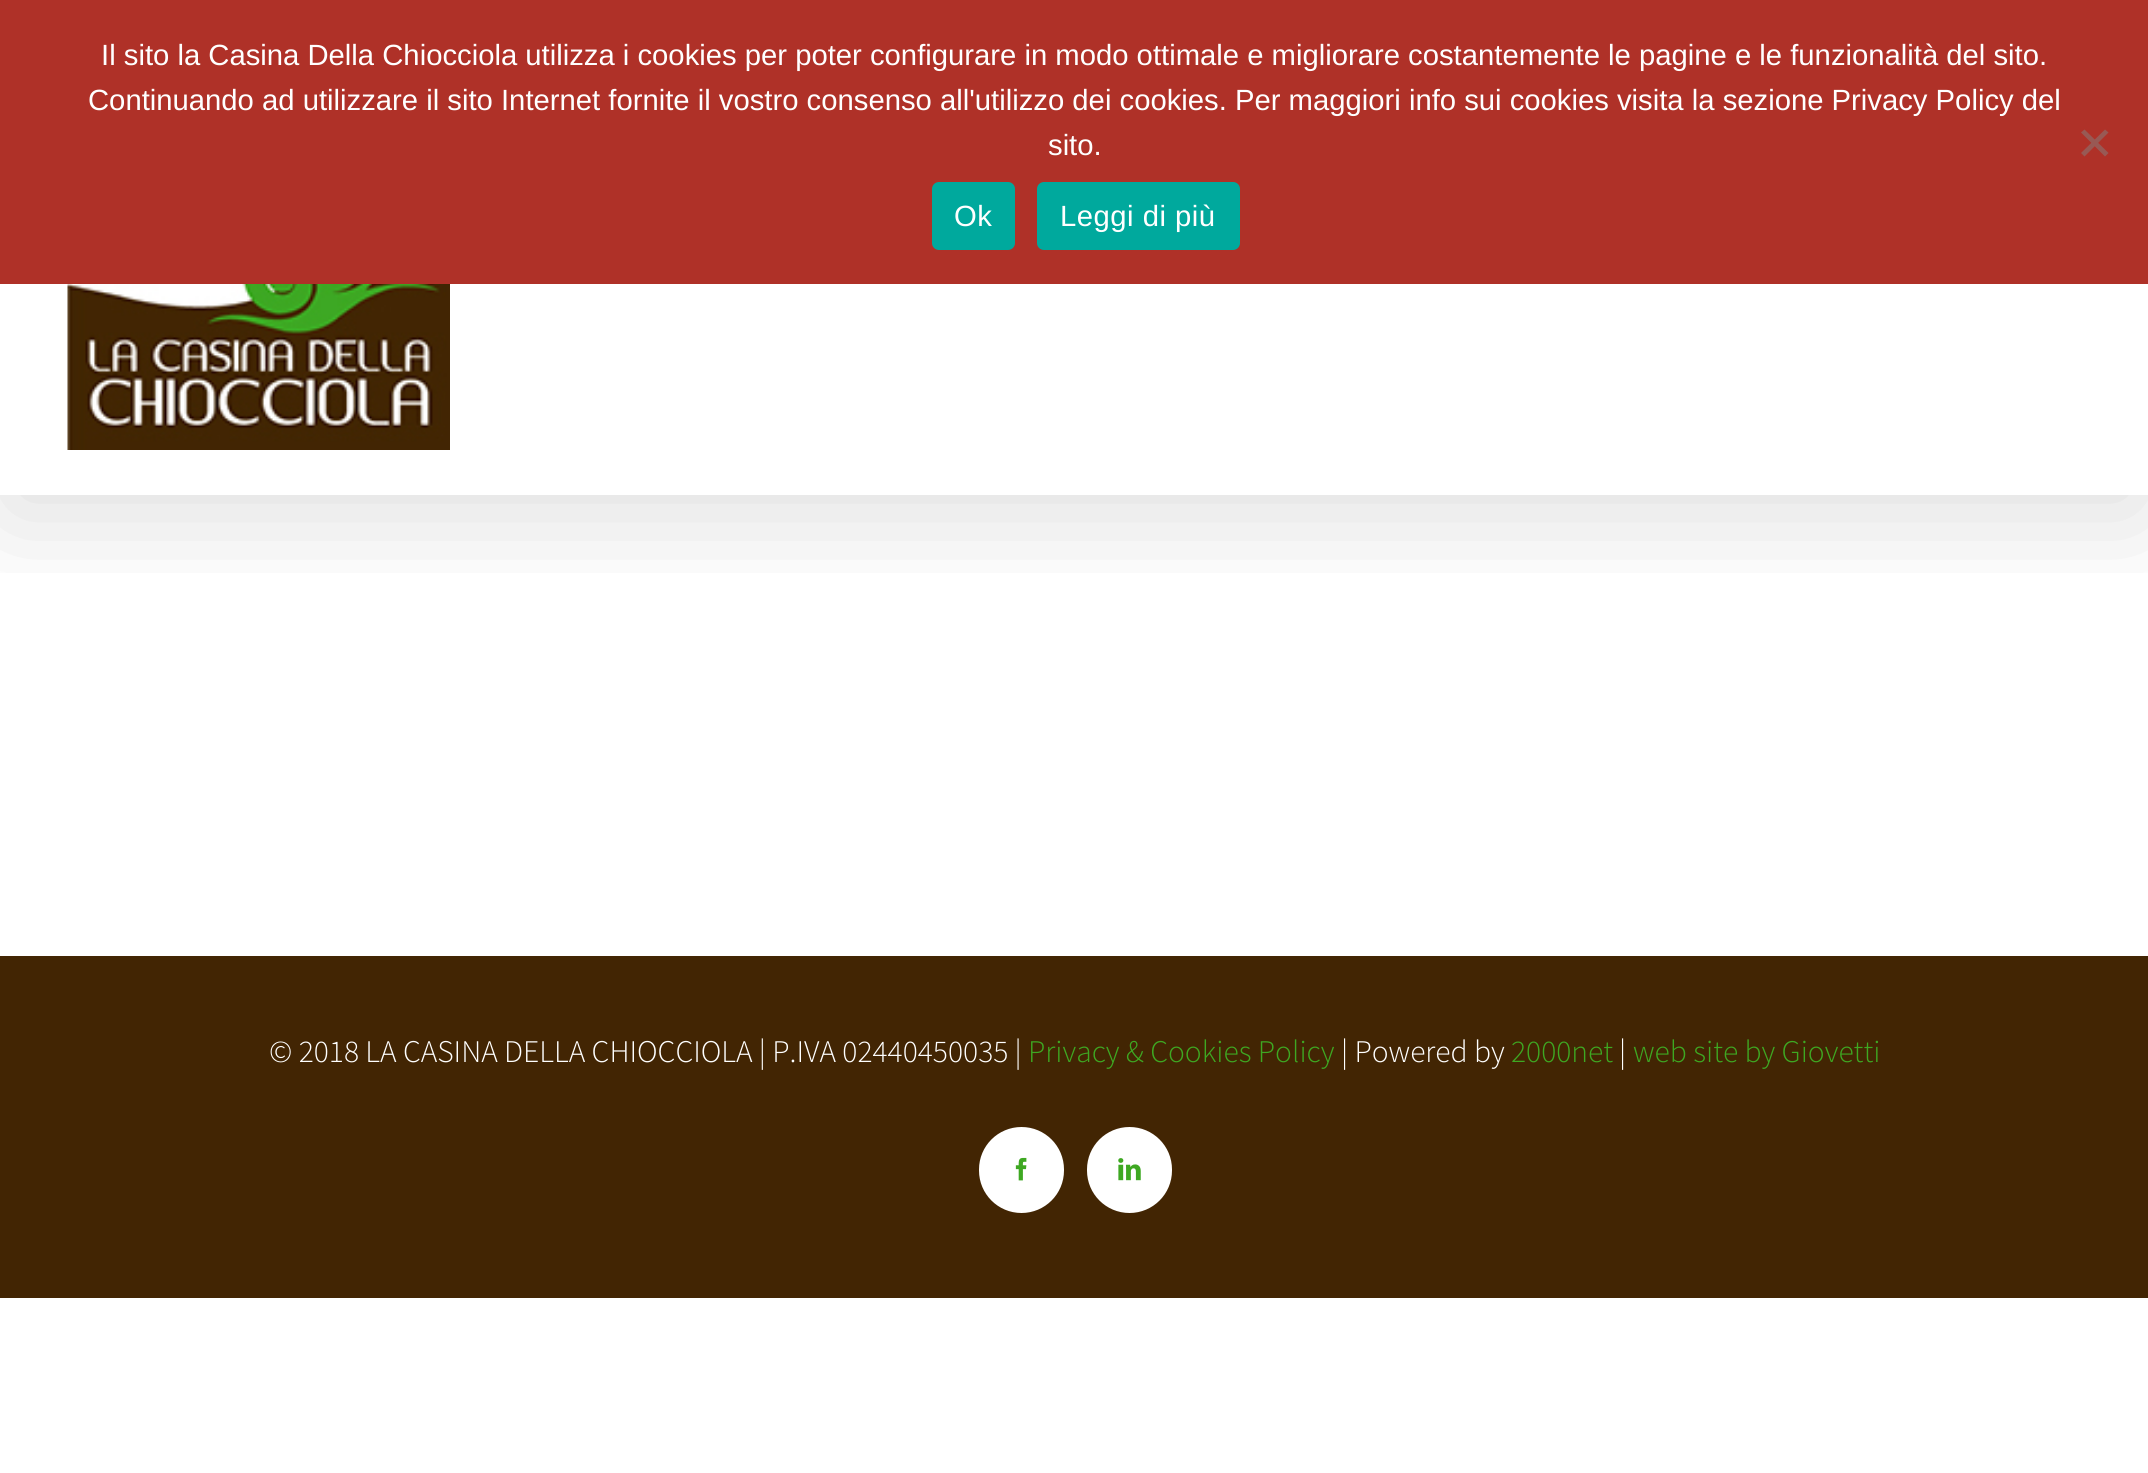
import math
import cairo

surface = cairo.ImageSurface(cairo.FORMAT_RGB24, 2148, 1473)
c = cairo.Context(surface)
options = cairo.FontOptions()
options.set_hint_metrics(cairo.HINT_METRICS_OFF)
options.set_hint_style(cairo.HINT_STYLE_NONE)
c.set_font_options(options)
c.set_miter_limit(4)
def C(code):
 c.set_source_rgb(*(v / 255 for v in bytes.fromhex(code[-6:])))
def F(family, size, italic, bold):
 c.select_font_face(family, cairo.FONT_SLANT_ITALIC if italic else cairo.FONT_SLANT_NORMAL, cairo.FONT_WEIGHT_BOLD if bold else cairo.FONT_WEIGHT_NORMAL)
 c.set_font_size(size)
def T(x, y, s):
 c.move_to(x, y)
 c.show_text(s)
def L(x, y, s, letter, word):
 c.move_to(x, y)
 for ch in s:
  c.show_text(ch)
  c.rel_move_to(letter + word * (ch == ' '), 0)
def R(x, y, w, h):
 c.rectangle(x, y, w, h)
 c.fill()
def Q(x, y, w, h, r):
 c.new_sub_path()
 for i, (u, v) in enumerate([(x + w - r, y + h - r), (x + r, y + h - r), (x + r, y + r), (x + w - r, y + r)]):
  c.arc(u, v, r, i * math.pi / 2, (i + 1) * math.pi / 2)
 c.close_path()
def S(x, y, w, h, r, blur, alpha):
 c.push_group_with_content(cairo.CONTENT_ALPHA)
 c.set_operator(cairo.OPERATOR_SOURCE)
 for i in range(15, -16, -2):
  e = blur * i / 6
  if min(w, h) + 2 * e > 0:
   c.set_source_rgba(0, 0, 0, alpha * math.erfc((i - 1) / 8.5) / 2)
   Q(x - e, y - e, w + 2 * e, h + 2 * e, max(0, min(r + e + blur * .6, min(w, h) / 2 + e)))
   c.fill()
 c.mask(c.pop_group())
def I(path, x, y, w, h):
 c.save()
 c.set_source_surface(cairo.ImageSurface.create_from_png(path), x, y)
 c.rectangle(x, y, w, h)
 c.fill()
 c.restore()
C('ffffff')
c.paint()
c.save()
c.rectangle(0,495,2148,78)
c.clip()
C('000000')
S(5,27,2139,486,0,56,.14)
c.restore()
C('af3128')
R(0,0,2148,284)
F('Liberation Sans',29.25,0,0)
C('ffffff')
T(101,65,'Il sito la Casina Della Chiocciola utilizza i cookies per poter configurare in modo ottimale e migliorare costantemente le pagine e le funzionalità del sito.')
T(88,110,'Continuando ad utilizzare il sito Internet fornite il vostro consenso all\'utilizzo dei cookies. Per maggiori info sui cookies visita la sezione Privacy Policy del')
T(1048,155,'sito.')
C('985954')
c.new_path()
c.move_to(2105,129.5)
c.line_to(2108.5,132.5)
c.line_to(2084.5,156.5)
c.line_to(2081,153)
c.close_path()
c.fill()
c.new_path()
c.move_to(2081,132.5)
c.line_to(2084.5,129.5)
c.line_to(2108.5,153)
c.line_to(2105,156.5)
c.close_path()
c.fill()
C('00a99d')
Q(932,182,83,68,7)
c.fill()
C('ffffff')
L(954,226,'Ok',.5,0)
C('00a99d')
Q(1037,182,203,68,7)
c.fill()
C('ffffff')
L(1060,226,'Leggi di più',.5,0)
I('1.png',67,284,383,166)
C('422503')
R(0,956,2148,342)
F('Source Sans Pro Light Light',31.5,0,0)
C('ffffff')
T(269,1062,'© 2018 LA CASINA DELLA CHIOCCIOLA | P.IVA 02440450035 |')
C('3ea822')
T(1028,1062,'Privacy & Cookies Policy')
C('ffffff')
T(1341,1062,'| Powered by')
C('3ea822')
T(1511,1062,'2000net')
C('ffffff')
T(1619,1062,'|')
C('3ea822')
T(1633,1062,'web site by Giovetti')
C('ffffff')
Q(980,1128,83,84,41.5)
c.fill_preserve()
c.stroke()
I('2.png',1015,1157,12,24)
Q(1088,1128,83,84,41.5)
c.fill_preserve()
c.stroke()
I('3.png',1118,1158,23,23)
surface.write_to_png('o.png')
